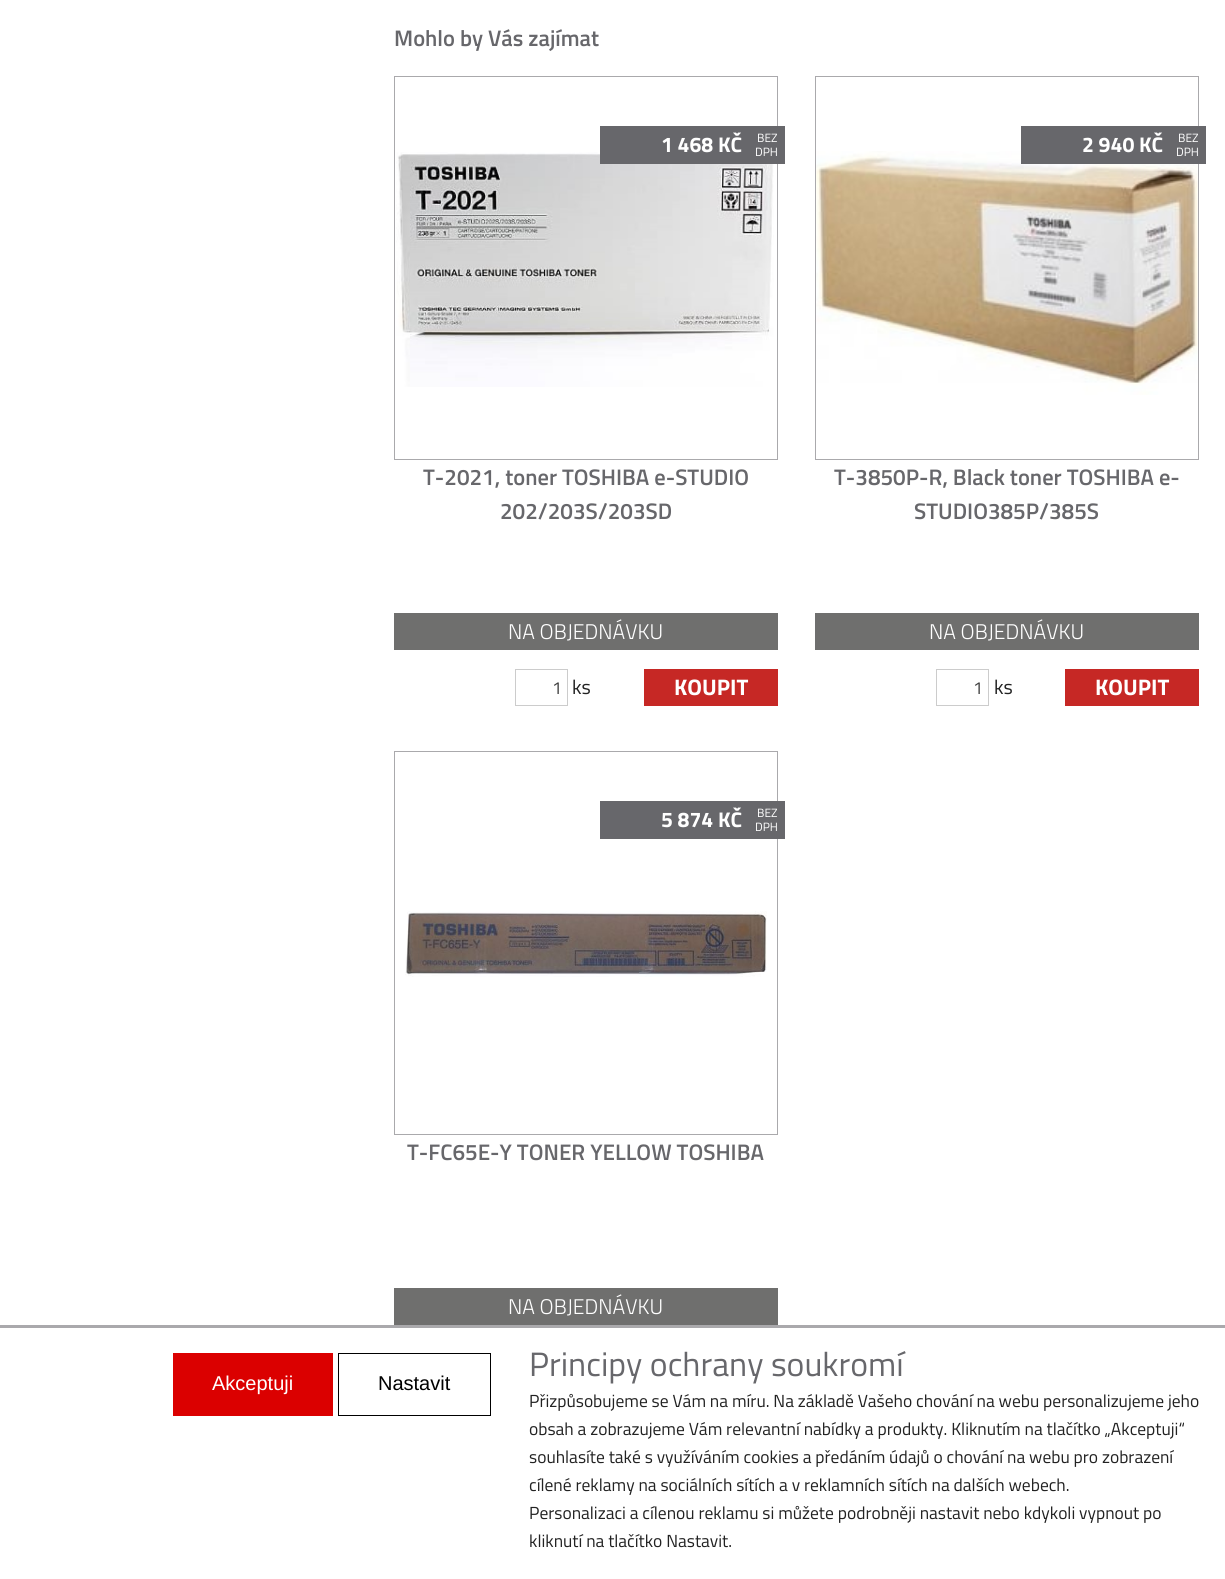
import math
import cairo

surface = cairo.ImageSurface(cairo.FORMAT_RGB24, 1225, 1579)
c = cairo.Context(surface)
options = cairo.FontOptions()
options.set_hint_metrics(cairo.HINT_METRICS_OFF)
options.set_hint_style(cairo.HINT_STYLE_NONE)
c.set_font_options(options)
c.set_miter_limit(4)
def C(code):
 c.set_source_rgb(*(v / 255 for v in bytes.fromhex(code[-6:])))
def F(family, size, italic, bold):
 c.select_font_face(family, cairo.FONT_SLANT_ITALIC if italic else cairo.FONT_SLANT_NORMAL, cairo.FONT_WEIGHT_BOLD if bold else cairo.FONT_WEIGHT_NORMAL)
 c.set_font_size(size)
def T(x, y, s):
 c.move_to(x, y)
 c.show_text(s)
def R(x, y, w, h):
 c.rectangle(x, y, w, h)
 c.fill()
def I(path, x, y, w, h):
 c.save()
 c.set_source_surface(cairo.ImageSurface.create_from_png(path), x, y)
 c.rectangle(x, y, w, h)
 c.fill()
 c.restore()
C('ffffff')
c.paint()
F('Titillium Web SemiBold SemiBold',22.5,0,0)
C('67676b')
T(394,46,'Mohlo by Vás zajímat')
c.rectangle(394.5,76.5,383,383)
C('aaa9ac')
c.set_line_width(1)
c.stroke()
I('1.png',396,152,378,235)
C('67676b')
R(600,126,185,38)
F('Titillium Web',21.25,0,1)
C('ffffff')
T(661,152,'1 468 KČ')
F('Titillium Web',12,0,0)
T(757,142,'BEZ')
T(755,156,'DPH')
F('Titillium Web SemiBold SemiBold',22.5,0,0)
C('67676b')
T(423,485,'T-2021, toner TOSHIBA e-STUDIO')
T(500,519,'202/203S/203SD')
C('6f6f6e')
R(394,613,384,37)
F('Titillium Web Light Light',21.25,0,0)
C('ffffff')
T(508,639,'NA OBJEDNÁVKU')
c.rectangle(515.5,669.5,52,36)
C('cccccc')
c.stroke()
F('Titillium Web',17.5,0,0)
C('404040')
T(552,694,'1')
F('Titillium Web',20,0,0)
C('222222')
T(572,694,'ks')
C('c62825')
R(644,669,134,37)
F('Titillium Web',22.5,0,1)
C('ffffff')
T(674,695,'KOUPIT')
c.rectangle(815.5,76.5,383,383)
C('aaa9ac')
c.stroke()
I('2.png',816,151,382,244)
C('67676b')
R(1021,126,185,38)
F('Titillium Web',21.25,0,1)
C('ffffff')
T(1082,152,'2 940 KČ')
F('Titillium Web',12,0,0)
T(1178,142,'BEZ')
T(1176,156,'DPH')
F('Titillium Web SemiBold SemiBold',22.5,0,0)
C('67676b')
T(834,485,'T-3850P-R, Black toner TOSHIBA e-')
T(914,519,'STUDIO385P/385S')
C('6f6f6e')
R(815,613,384,37)
F('Titillium Web Light Light',21.25,0,0)
C('ffffff')
T(929,639,'NA OBJEDNÁVKU')
c.rectangle(936.5,669.5,52,36)
C('cccccc')
c.stroke()
F('Titillium Web',17.5,0,0)
C('404040')
T(973,694,'1')
F('Titillium Web',20,0,0)
C('222222')
T(994,694,'ks')
C('c62825')
R(1065,669,134,37)
F('Titillium Web',22.5,0,1)
C('ffffff')
T(1095,695,'KOUPIT')
c.rectangle(394.5,751.5,383,383)
C('aaa9ac')
c.stroke()
I('3.png',405,911,362,66)
C('67676b')
R(600,801,185,38)
F('Titillium Web',21.25,0,1)
C('ffffff')
T(661,827,'5 874 KČ')
F('Titillium Web',12,0,0)
T(757,817,'BEZ')
T(755,831,'DPH')
F('Titillium Web SemiBold SemiBold',22.5,0,0)
C('67676b')
T(407,1160,'T-FC65E-Y TONER YELLOW TOSHIBA')
C('6f6f6e')
R(394,1288,384,37)
F('Titillium Web Light Light',21.25,0,0)
C('ffffff')
T(508,1314,'NA OBJEDNÁVKU')
C('aaa9ac')
R(0,1325,1225,3)
C('db0000')
R(173,1353,160,63)
F('Liberation Sans',20,0,0)
C('ffffff')
T(212,1390,'Akceptuji')
c.rectangle(338.5,1353.5,152,62)
C('000000')
c.stroke()
T(378,1390,'Nastavit')
F('Titillium Web',33.75,0,0)
C('67676b')
T(529,1376,'Principy ochrany soukromí')
F('Titillium Web',17.5,0,0)
C('222222')
T(529,1407,'Přizpůsobujeme se Vám na míru. Na základě Vašeho chování na webu personalizujeme jeho')
T(529,1435,'obsah a zobrazujeme Vám relevantní nabídky a produkty. Kliknutím na tlačítko „Akceptuji“')
T(529,1463,'souhlasíte také s využíváním cookies a předáním údajů o chování na webu pro zobrazení')
T(529,1491,'cílené reklamy na sociálních sítích a v reklamních sítích na dalších webech.')
T(529,1519,'Personalizaci a cílenou reklamu si můžete podrobněji nastavit nebo kdykoli vypnout po')
T(529,1547,'kliknutí na tlačítko Nastavit.')
surface.write_to_png('o.png')
